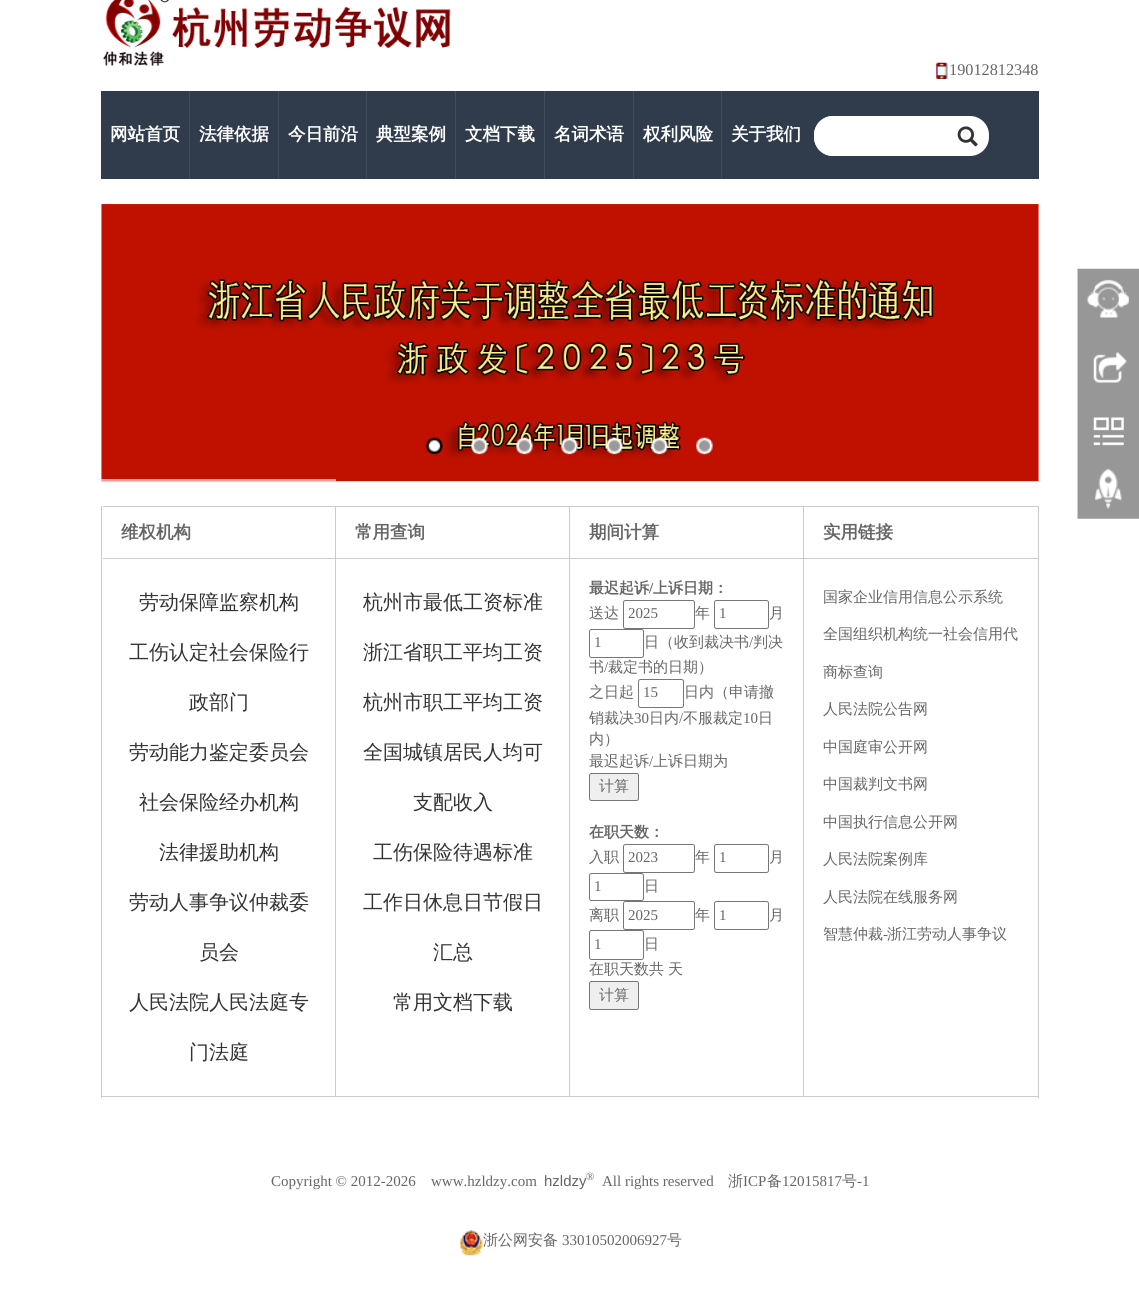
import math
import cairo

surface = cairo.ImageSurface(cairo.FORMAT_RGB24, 1139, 1290)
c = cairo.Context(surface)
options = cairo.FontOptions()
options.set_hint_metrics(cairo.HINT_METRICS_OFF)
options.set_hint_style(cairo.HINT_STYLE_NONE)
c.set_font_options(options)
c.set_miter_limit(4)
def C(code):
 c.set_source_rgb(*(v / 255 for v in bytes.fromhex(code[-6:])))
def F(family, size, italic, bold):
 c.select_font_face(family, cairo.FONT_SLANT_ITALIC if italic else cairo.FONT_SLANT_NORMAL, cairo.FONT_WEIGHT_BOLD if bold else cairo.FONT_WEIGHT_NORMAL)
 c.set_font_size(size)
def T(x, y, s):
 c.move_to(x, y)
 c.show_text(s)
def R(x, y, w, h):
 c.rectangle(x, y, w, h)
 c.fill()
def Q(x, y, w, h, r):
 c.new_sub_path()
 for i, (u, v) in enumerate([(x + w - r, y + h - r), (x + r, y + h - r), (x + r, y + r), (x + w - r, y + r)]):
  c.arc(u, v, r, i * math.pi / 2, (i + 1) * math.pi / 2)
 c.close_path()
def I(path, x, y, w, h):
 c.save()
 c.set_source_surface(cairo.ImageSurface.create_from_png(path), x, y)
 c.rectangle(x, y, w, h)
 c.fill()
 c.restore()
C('ffffff')
c.paint()
I('1.png',103,0,348,66)
I('2.png',936,62,12,17)
F('Liberation Serif',16.25,0,0)
C('666666')
T(949,75,'19012812348')
C('303c4b')
R(101,91,938,88)
C('424d5b')
R(189,91,1,88)
F('WenQuanYi Zen Hei',17.5,0,1)
C('ffffff')
T(110,140,'网站首页')
C('424d5b')
R(278,91,1,88)
C('ffffff')
T(199,140,'法律依据')
C('424d5b')
R(366,91,1,88)
C('ffffff')
T(288,140,'今日前沿')
C('424d5b')
R(455,91,1,88)
C('ffffff')
T(376,140,'典型案例')
C('424d5b')
R(544,91,1,88)
C('ffffff')
T(465,140,'文档下载')
C('424d5b')
R(633,91,1,88)
C('ffffff')
T(554,140,'名词术语')
C('424d5b')
R(721,91,1,88)
C('ffffff')
T(643,140,'权利风险')
T(731,140,'关于我们')
Q(814,116,175,40,19)
c.fill()
c.new_path()
c.move_to(833,116)
c.line_to(958,116)
c.line_to(958,156)
c.line_to(833,156)
c.curve_to(822.5,156,814,147.5,814,137)
c.line_to(814,135)
c.curve_to(814,124.5,822.5,116,833,116)
c.close_path()
c.fill()
I('3.png',957,126,21,21)
I('4.png',101,204,938,278)
c.set_source_rgba(1,1,1,0.6)
R(101,479,235,2)
I('5.png',426,437,17,18)
I('6.png',471,437,17,18)
I('7.png',516,437,17,18)
I('8.png',561,437,17,18)
I('9.png',606,437,17,18)
I('10.png',651,437,17,18)
I('11.png',696,437,17,18)
I('12.png',1077,268,62,251)
C('cccccc')
R(1038,506,1,592)
R(101,1096,938,1)
R(101,506,1,592)
R(335,506,1,590)
R(103,506,232,1)
R(103,558,232,1)
C('666666')
T(121,538,'维权机构')
F('WenQuanYi Zen Hei Medium',20,0,0)
C('333333')
T(139,609,'劳动保障监察机构')
T(129,659,'工伤认定社会保险行')
T(189,709,'政部门')
T(129,759,'劳动能力鉴定委员会')
T(139,809,'社会保险经办机构')
T(159,859,'法律援助机构')
T(129,909,'劳动人事争议仲裁委')
T(199,959,'员会')
T(129,1009,'人民法院人民法庭专')
T(189,1059,'门法庭')
C('cccccc')
R(569,506,1,590)
R(336,506,233,1)
R(336,558,233,1)
F('WenQuanYi Zen Hei',17.5,0,1)
C('666666')
T(355,538,'常用查询')
F('WenQuanYi Zen Hei Medium',20,0,0)
C('333333')
T(363,609,'杭州市最低工资标准')
T(363,659,'浙江省职工平均工资')
T(363,709,'杭州市职工平均工资')
T(363,759,'全国城镇居民人均可')
T(413,809,'支配收入')
T(373,859,'工伤保险待遇标准')
T(363,909,'工作日休息日节假日')
T(433,959,'汇总')
T(393,1009,'常用文档下载')
C('cccccc')
R(803,506,1,590)
R(570,506,233,1)
R(570,558,233,1)
F('WenQuanYi Zen Hei',17.5,0,1)
C('666666')
T(589,538,'期间计算')
F('WenQuanYi Zen Hei',15,0,1)
T(589,593,'最迟起诉')
F('Liberation Serif',15,0,1)
T(649,593,'/')
F('WenQuanYi Zen Hei',15,0,1)
T(653,593,'上诉日期：')
F('WenQuanYi Zen Hei Medium',15,0,0)
T(589,618,'送达')
Q(623.5,600.5,71,28,2)
C('767676')
c.set_line_width(1)
c.stroke()
F('Liberation Serif',15,0,0)
C('666666')
T(628,618,'2025')
F('WenQuanYi Zen Hei Medium',15,0,0)
T(695,618,'年')
Q(714.5,600.5,54,28,2)
C('767676')
c.stroke()
F('Liberation Serif',15,0,0)
C('666666')
T(719,618,'1')
F('WenQuanYi Zen Hei Medium',15,0,0)
T(769,618,'月')
Q(589.5,629.5,54,28,2)
C('767676')
c.stroke()
F('Liberation Serif',15,0,0)
C('666666')
T(594,647,'1')
F('WenQuanYi Zen Hei Medium',15,0,0)
T(644,647,'日（收到裁决书')
F('Liberation Serif',15,0,0)
T(749,647,'/')
F('WenQuanYi Zen Hei Medium',15,0,0)
T(753,647,'判决')
T(589,672,'书')
F('Liberation Serif',15,0,0)
T(604,672,'/')
F('WenQuanYi Zen Hei Medium',15,0,0)
T(608,672,'裁定书的日期）')
T(589,697,'之日起')
Q(638.5,679.5,45,28,2)
C('767676')
c.stroke()
F('Liberation Serif',15,0,0)
C('666666')
T(643,697,'15')
F('WenQuanYi Zen Hei Medium',15,0,0)
T(684,697,'日内（申请撤')
T(589,723,'销裁决')
F('Liberation Serif',15,0,0)
T(634,723,'30')
F('WenQuanYi Zen Hei Medium',15,0,0)
T(649,723,'日内')
F('Liberation Serif',15,0,0)
T(679,723,'/')
F('WenQuanYi Zen Hei Medium',15,0,0)
T(683,723,'不服裁定')
F('Liberation Serif',15,0,0)
T(743,723,'10')
F('WenQuanYi Zen Hei Medium',15,0,0)
T(758,723,'日')
T(589,744,'内）')
T(589,766,'最迟起诉')
F('Liberation Serif',15,0,0)
T(649,766,'/')
F('WenQuanYi Zen Hei Medium',15,0,0)
T(653,766,'上诉日期为')
C('efefef')
Q(589.5,773.5,49,27,2)
c.fill_preserve()
C('767676')
c.stroke()
C('666666')
T(599,791,'计算')
F('WenQuanYi Zen Hei',15,0,1)
T(589,837,'在职天数：')
F('WenQuanYi Zen Hei Medium',15,0,0)
T(589,862,'入职')
Q(623.5,844.5,71,28,2)
C('767676')
c.stroke()
F('Liberation Serif',15,0,0)
C('666666')
T(628,862,'2023')
F('WenQuanYi Zen Hei Medium',15,0,0)
T(695,862,'年')
Q(714.5,844.5,54,28,2)
C('767676')
c.stroke()
F('Liberation Serif',15,0,0)
C('666666')
T(719,862,'1')
F('WenQuanYi Zen Hei Medium',15,0,0)
T(769,862,'月')
Q(589.5,873.5,54,27,2)
C('767676')
c.stroke()
F('Liberation Serif',15,0,0)
C('666666')
T(594,891,'1')
F('WenQuanYi Zen Hei Medium',15,0,0)
T(644,891,'日')
T(589,920,'离职')
Q(623.5,901.5,71,28,2)
C('767676')
c.stroke()
F('Liberation Serif',15,0,0)
C('666666')
T(628,920,'2025')
F('WenQuanYi Zen Hei Medium',15,0,0)
T(695,920,'年')
Q(714.5,901.5,54,28,2)
C('767676')
c.stroke()
F('Liberation Serif',15,0,0)
C('666666')
T(719,920,'1')
F('WenQuanYi Zen Hei Medium',15,0,0)
T(769,920,'月')
Q(589.5,930.5,54,29,2)
C('767676')
c.stroke()
F('Liberation Serif',15,0,0)
C('666666')
T(594,949,'1')
F('WenQuanYi Zen Hei Medium',15,0,0)
T(644,949,'日')
T(589,974,'在职天数共')
T(668,974,'天')
C('efefef')
Q(589.5,981.5,49,28,2)
c.fill_preserve()
C('767676')
c.stroke()
C('666666')
T(599,1000,'计算')
C('cccccc')
R(804,506,234,1)
R(804,558,234,1)
F('WenQuanYi Zen Hei',17.5,0,1)
C('666666')
T(823,538,'实用链接')
F('WenQuanYi Zen Hei Medium',15,0,0)
T(823,602,'国家企业信用信息公示系统')
T(823,639,'全国组织机构统一社会信用代')
T(823,677,'商标查询')
T(823,714,'人民法院公告网')
T(823,752,'中国庭审公开网')
T(823,789,'中国裁判文书网')
T(823,827,'中国执行信息公开网')
T(823,864,'人民法院案例库')
T(823,902,'人民法院在线服务网')
T(823,939,'智慧仲裁')
F('Liberation Serif',15,0,0)
T(883,939,'-')
F('WenQuanYi Zen Hei Medium',15,0,0)
T(887,939,'浙江劳动人事争议')
F('Liberation Serif',15,0,0)
T(271,1186,'Copyright © 2012-2026')
T(431,1186,'www.hzldzy.com')
F('Liberation Sans',15,0,0)
T(544,1186,'hzldzy')
F('Liberation Serif',11,0,0)
T(586,1180,'®')
F('Liberation Serif',15,0,0)
T(602,1186,'All rights reserved')
F('WenQuanYi Zen Hei Medium',15,0,0)
T(728,1186,'浙')
F('Liberation Serif',15,0,0)
T(743,1186,'ICP')
F('WenQuanYi Zen Hei Medium',15,0,0)
T(767,1186,'备')
F('Liberation Serif',15,0,0)
T(782,1186,'12015817')
F('WenQuanYi Zen Hei Medium',15,0,0)
T(842,1186,'号')
F('Liberation Serif',15,0,0)
T(857,1186,'-1')
I('13.png',459,1230,24,26)
F('WenQuanYi Zen Hei Medium',15,0,0)
T(483,1245,'浙公网安备')
F('Liberation Serif',15,0,0)
T(562,1245,'33010502006927')
F('WenQuanYi Zen Hei Medium',15,0,0)
T(667,1245,'号')
surface.write_to_png('o.png')
